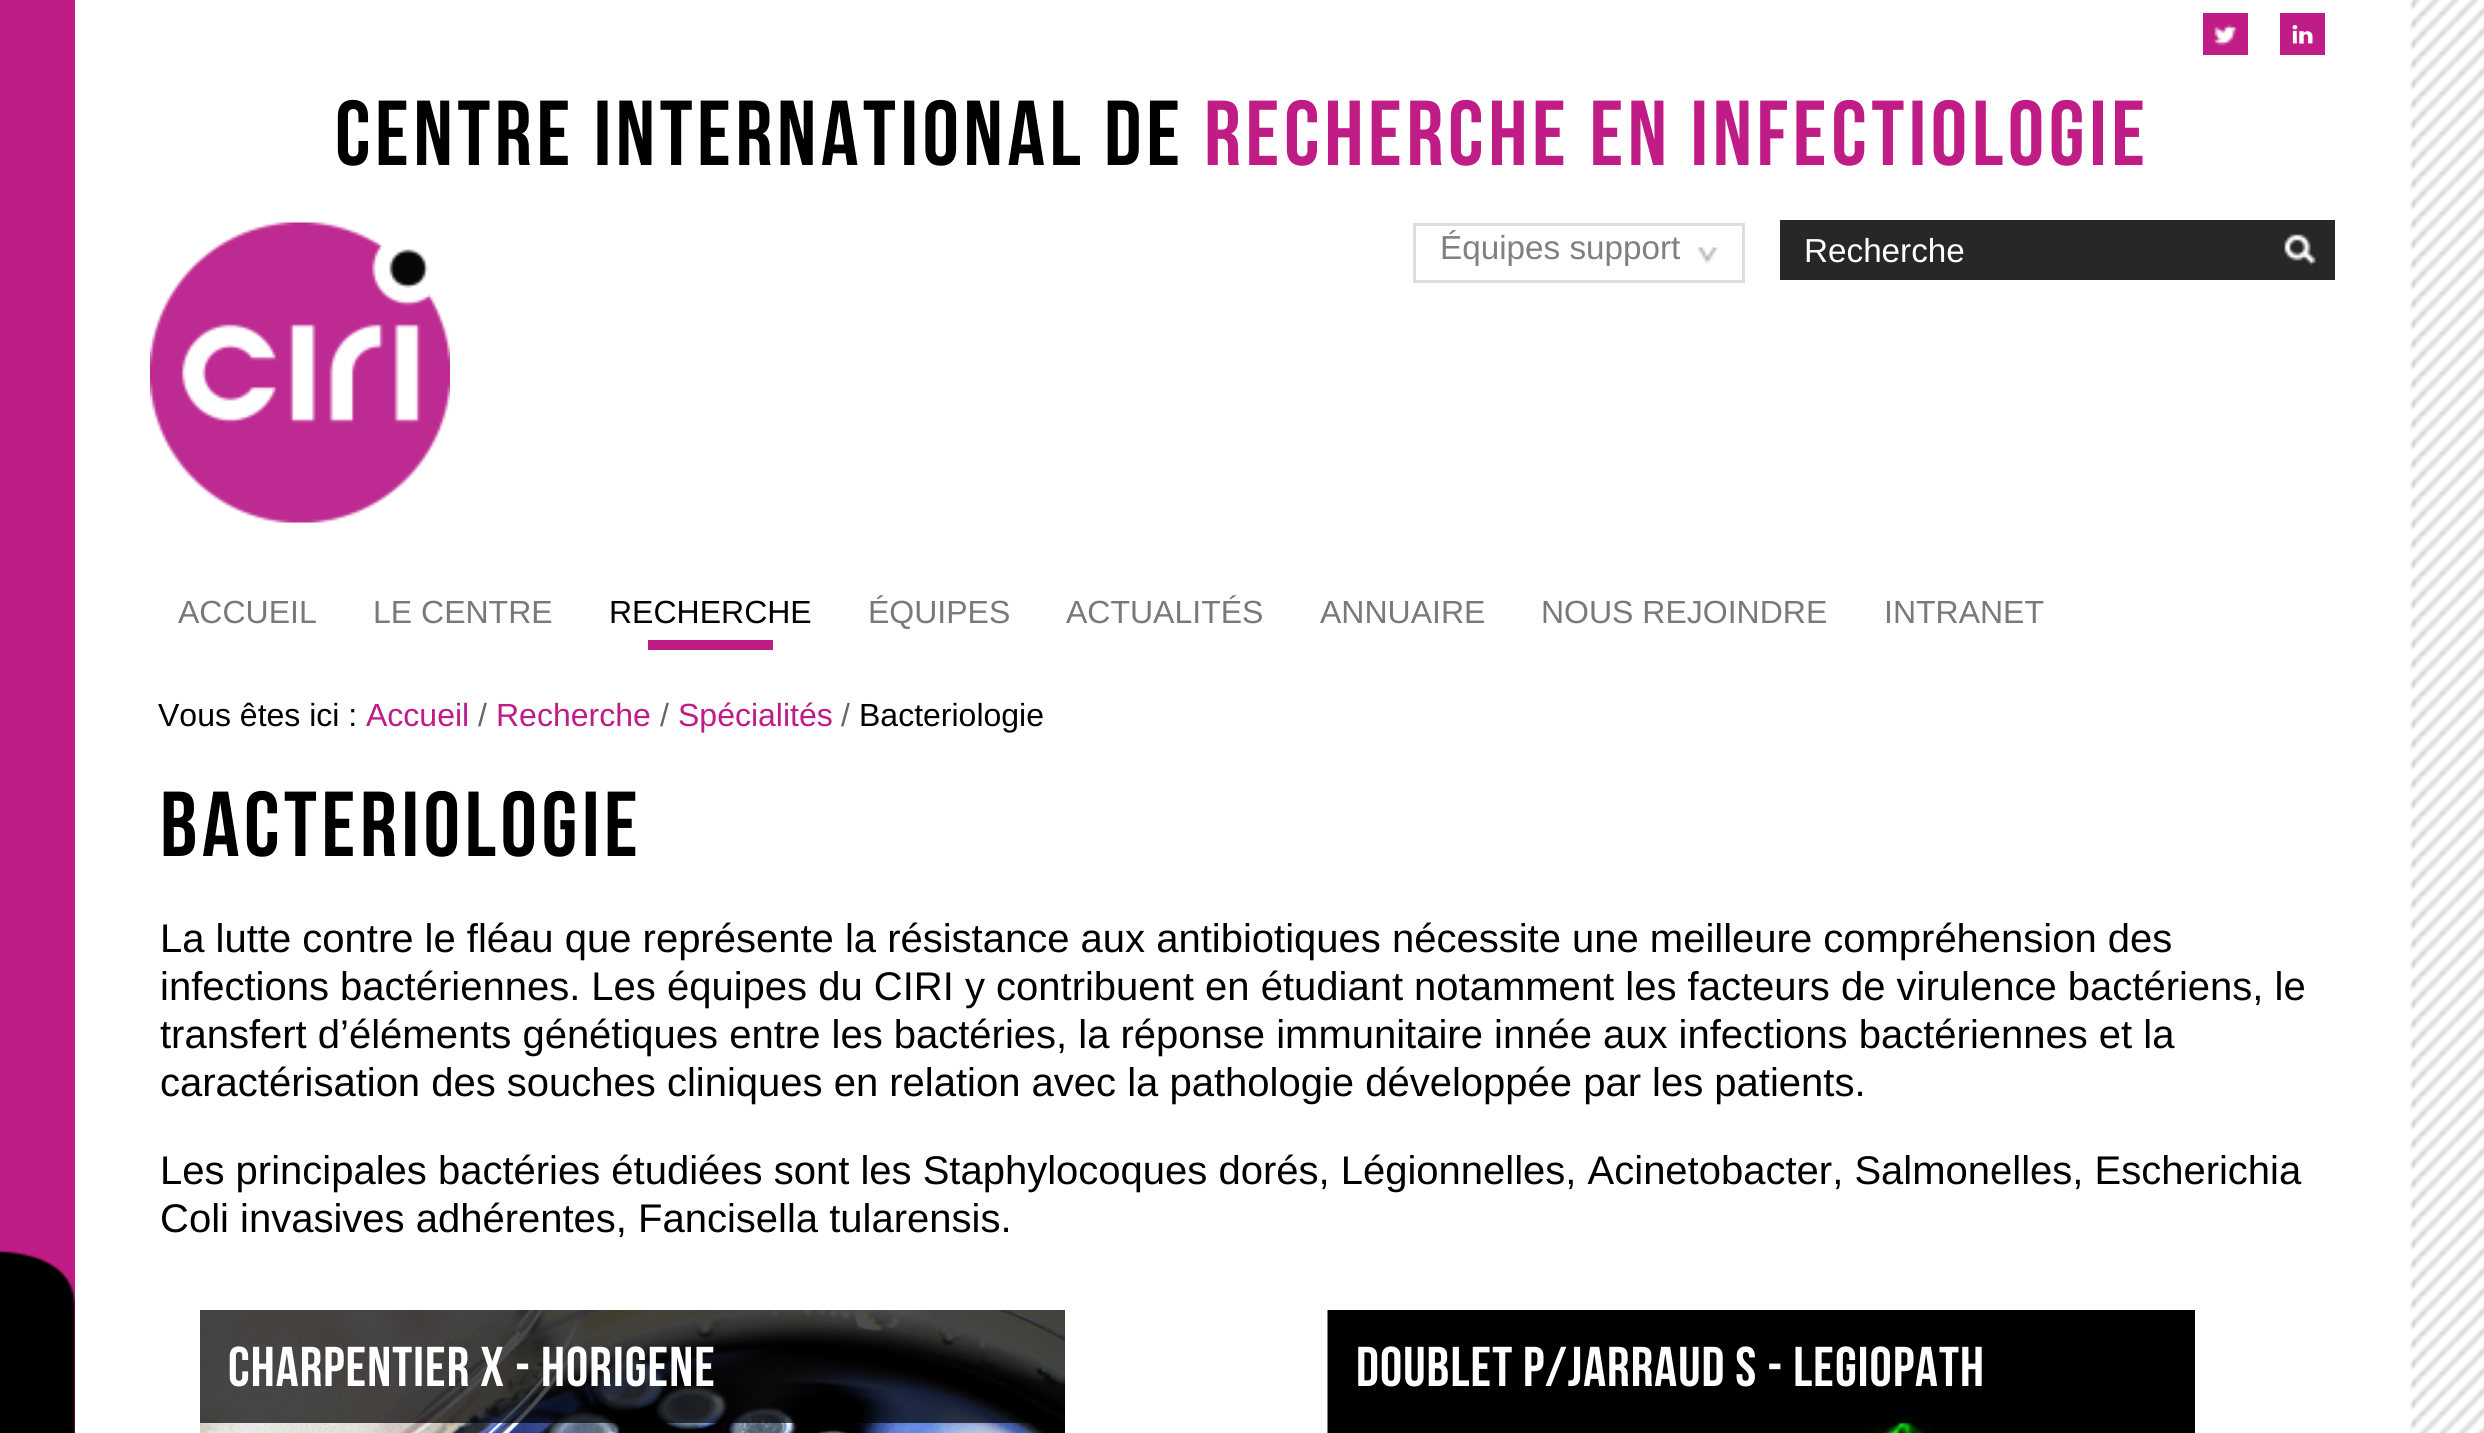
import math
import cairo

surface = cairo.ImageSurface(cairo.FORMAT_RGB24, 2484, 1433)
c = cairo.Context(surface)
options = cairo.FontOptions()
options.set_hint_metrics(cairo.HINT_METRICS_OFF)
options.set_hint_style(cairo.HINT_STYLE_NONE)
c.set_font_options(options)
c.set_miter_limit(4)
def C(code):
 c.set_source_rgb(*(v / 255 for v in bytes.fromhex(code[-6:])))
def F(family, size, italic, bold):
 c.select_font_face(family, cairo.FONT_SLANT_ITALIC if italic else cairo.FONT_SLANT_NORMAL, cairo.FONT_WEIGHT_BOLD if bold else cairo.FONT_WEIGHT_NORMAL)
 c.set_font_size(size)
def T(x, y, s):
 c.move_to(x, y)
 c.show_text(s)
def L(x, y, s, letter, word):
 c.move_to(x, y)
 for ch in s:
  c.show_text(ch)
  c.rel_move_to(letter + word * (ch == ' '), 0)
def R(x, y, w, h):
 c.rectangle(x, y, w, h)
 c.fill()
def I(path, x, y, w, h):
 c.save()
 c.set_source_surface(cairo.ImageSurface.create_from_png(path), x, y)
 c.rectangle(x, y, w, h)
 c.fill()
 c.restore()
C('ffffff')
c.paint()
C('c01c85')
R(0,0,75,1433)
I('1.png',0,1250,75,183)
R(2203,13,45,42)
R(2280,13,45,42)
I('2.png',2214,24,24,22)
I('3.png',2292,25,21,19)
F('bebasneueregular',92,0,0)
C('000000')
L(335,165,'Centre International de',4.6,0)
C('c01c85')
L(1204,165,'Recherche en Infectiologie',4.6,0)
I('4.png',150,222,300,301)
I('5.png',1697,247,21,17)
c.rectangle(1414.5,224.5,329,57)
C('dddddd')
c.set_line_width(3)
c.stroke()
F('Liberation Sans',33.25,0,0)
C('808080')
T(1440,259,'Équipes support')
C('272727')
R(1780,220,483,60)
C('ffffff')
T(1804,262,'Recherche')
I('6.png',2263,220,72,60)
F('Liberation Sans',32,0,0)
C('797979')
T(178,623,'ACCUEIL')
T(373,623,'LE CENTRE')
C('000000')
T(609,623,'RECHERCHE')
C('c01c85')
R(648,640,125,10)
C('797979')
T(868,623,'ÉQUIPES')
T(1066,623,'ACTUALITÉS')
T(1320,623,'ANNUAIRE')
T(1541,623,'NOUS REJOINDRE')
T(1884,623,'INTRANET')
C('000000')
T(158,726,'Vous êtes ici :')
C('c01c85')
T(366,726,'Accueil')
C('666666')
T(478,726,'/')
C('c01c85')
T(496,726,'Recherche')
C('666666')
T(660,726,'/')
C('c01c85')
T(678,726,'Spécialités')
C('666666')
T(841,726,'/')
C('000000')
T(859,726,'Bacteriologie')
F('bebasneueregular',92,0,0)
L(160,856,'Bacteriologie',4.6,0)
F('Liberation Sans',40,0,0)
T(160,952,'La lutte contre le fléau que représente la résistance aux antibiotiques nécessite une meilleure compréhension des')
T(160,1000,'infections bactériennes. Les équipes du CIRI y contribuent en étudiant notamment les facteurs de virulence bactériens, le')
T(160,1048,'transfert d’éléments génétiques entre les bactéries, la réponse immunitaire innée aux infections bactériennes et la')
T(160,1096,'caractérisation des souches cliniques en relation avec la pathologie développée par les patients.')
T(160,1184,'Les principales bactéries étudiées sont les Staphylocoques dorés, Légionnelles, Acinetobacter, Salmonelles, Escherichia')
T(160,1232,'Coli invasives adhérentes, Fancisella tularensis.')
I('7.png',200,1310,865,123)
F('bebasneueregular',56,0,0)
C('ffffff')
L(228,1386,'Charpentier X - Horigene',1.1,0)
I('8.png',1327,1310,868,123)
L(1356,1386,'Doublet P/Jarraud S - LegioPath',1.1,0)
I('9.png',2410,0,74,1433)
surface.write_to_png('o.png')
